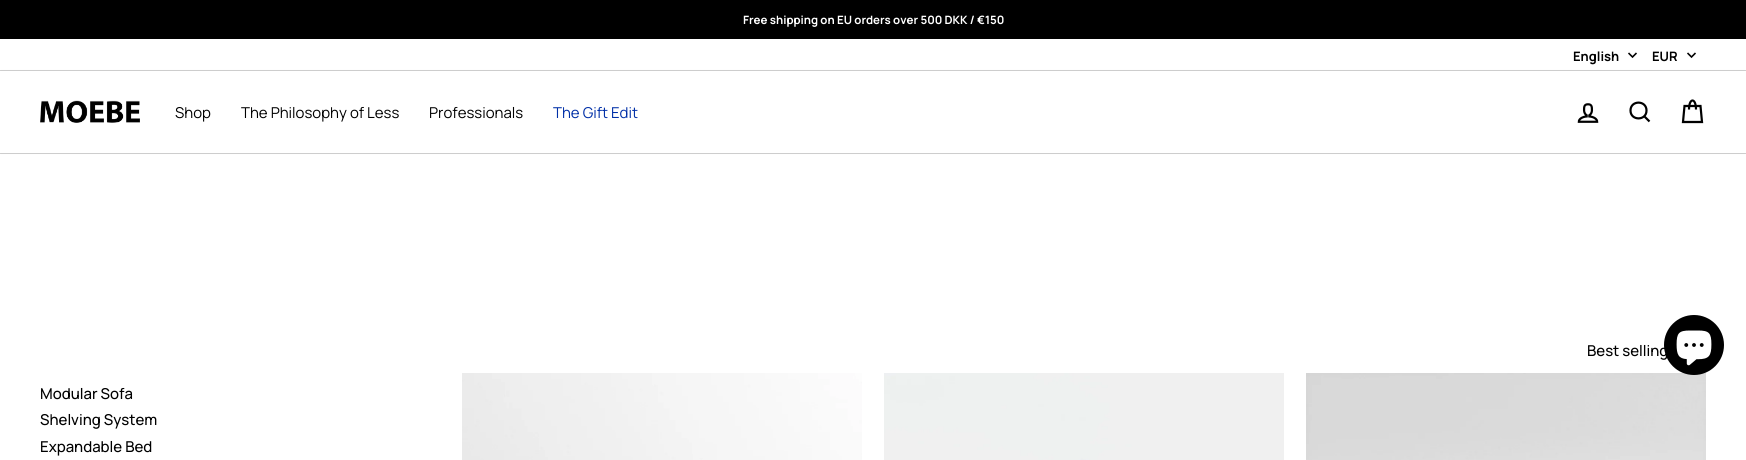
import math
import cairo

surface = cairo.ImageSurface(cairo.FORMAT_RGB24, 1746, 460)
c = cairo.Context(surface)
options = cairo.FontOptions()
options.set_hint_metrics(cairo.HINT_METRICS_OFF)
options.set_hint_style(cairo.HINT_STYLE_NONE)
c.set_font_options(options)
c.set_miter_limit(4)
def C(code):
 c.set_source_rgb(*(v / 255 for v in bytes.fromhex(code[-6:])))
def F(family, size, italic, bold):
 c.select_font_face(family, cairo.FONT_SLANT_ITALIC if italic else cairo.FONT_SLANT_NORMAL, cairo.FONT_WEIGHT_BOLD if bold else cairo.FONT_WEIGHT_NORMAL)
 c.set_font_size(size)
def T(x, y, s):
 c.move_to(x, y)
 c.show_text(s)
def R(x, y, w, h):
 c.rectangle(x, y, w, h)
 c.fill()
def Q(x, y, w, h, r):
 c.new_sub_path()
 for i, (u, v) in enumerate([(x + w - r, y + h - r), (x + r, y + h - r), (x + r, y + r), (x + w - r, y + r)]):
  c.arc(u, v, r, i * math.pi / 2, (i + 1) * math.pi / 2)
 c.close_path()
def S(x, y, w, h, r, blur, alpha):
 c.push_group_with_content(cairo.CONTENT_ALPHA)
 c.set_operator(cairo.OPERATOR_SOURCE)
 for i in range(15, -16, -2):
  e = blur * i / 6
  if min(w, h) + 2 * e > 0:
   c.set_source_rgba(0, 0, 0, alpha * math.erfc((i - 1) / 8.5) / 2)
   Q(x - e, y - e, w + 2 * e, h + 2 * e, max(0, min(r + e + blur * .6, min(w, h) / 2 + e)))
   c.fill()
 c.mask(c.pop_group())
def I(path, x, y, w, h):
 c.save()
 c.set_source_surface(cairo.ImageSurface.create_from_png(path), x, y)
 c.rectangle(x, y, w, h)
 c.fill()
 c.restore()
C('ffffff')
c.paint()
C('000000')
R(0,0,1746,39)
F('Manrope',11.5,0,1)
C('ffffff')
T(743,24,'Free shipping on EU orders over 500 DKK / €150')
F('Manrope',13,0,1)
C('000000')
T(1573,61,'English')
c.new_path()
c.move_to(1628.5,53)
c.line_to(1632.5,57)
c.line_to(1636.5,53)
c.set_line_width(1.6)
c.stroke()
T(1652,61,'EUR')
c.new_path()
c.move_to(1687.5,53)
c.line_to(1691.5,57)
c.line_to(1695.5,53)
c.stroke()
c.save()
c.set_fill_rule(cairo.FILL_RULE_EVEN_ODD)
c.new_path()
c.move_to(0,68)
c.line_to(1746,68)
c.line_to(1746,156)
c.line_to(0,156)
c.close_path()
c.move_to(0,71)
c.line_to(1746,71)
c.line_to(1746,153)
c.line_to(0,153)
c.close_path()
c.clip()
C('000000')
S(0,71,1746,82,0,.5,.8)
c.restore()
I('1.png',40,100,100,23)
F('Manrope',15,0,0)
T(175,118,'Shop')
T(241,118,'The Philosophy of Less')
T(429,118,'Professionals')
C('002fa7')
T(553,118,'The Gift Edit')
I('2.png',1577,103,22,20)
c.new_path()
c.move_to(1646.5,110.5)
c.curve_to(1646.5,121,1630.5,121,1630.5,110.5)
c.curve_to(1630.5,100,1646.5,100,1646.5,110.5)
c.close_path()
c.move_to(1649.5,121.5)
c.line_to(1644.5,116.5)
C('000000')
c.set_line_width(2.2)
c.stroke()
c.new_path()
c.move_to(1689,109.5)
c.curve_to(1689,97.5,1696,97.5,1696,109.5)
c.move_to(1684.5,106)
c.line_to(1700.5,106)
c.line_to(1702,122)
c.line_to(1683,122)
c.close_path()
c.stroke()
F('Manrope Medium',15,0,0)
T(1587,356,'Best selling')
I('3.png',462,373,400,87)
I('4.png',884,373,400,87)
I('5.png',1306,373,400,87)
T(40,399,'Modular Sofa')
T(40,425,'Shelving System')
T(40,452,'Expandable Bed')
c.new_path()
c.arc(1694,345,30,0,2 * math.pi)
c.fill()
I('6.png',1676,330,36,36)
surface.write_to_png('o.png')
